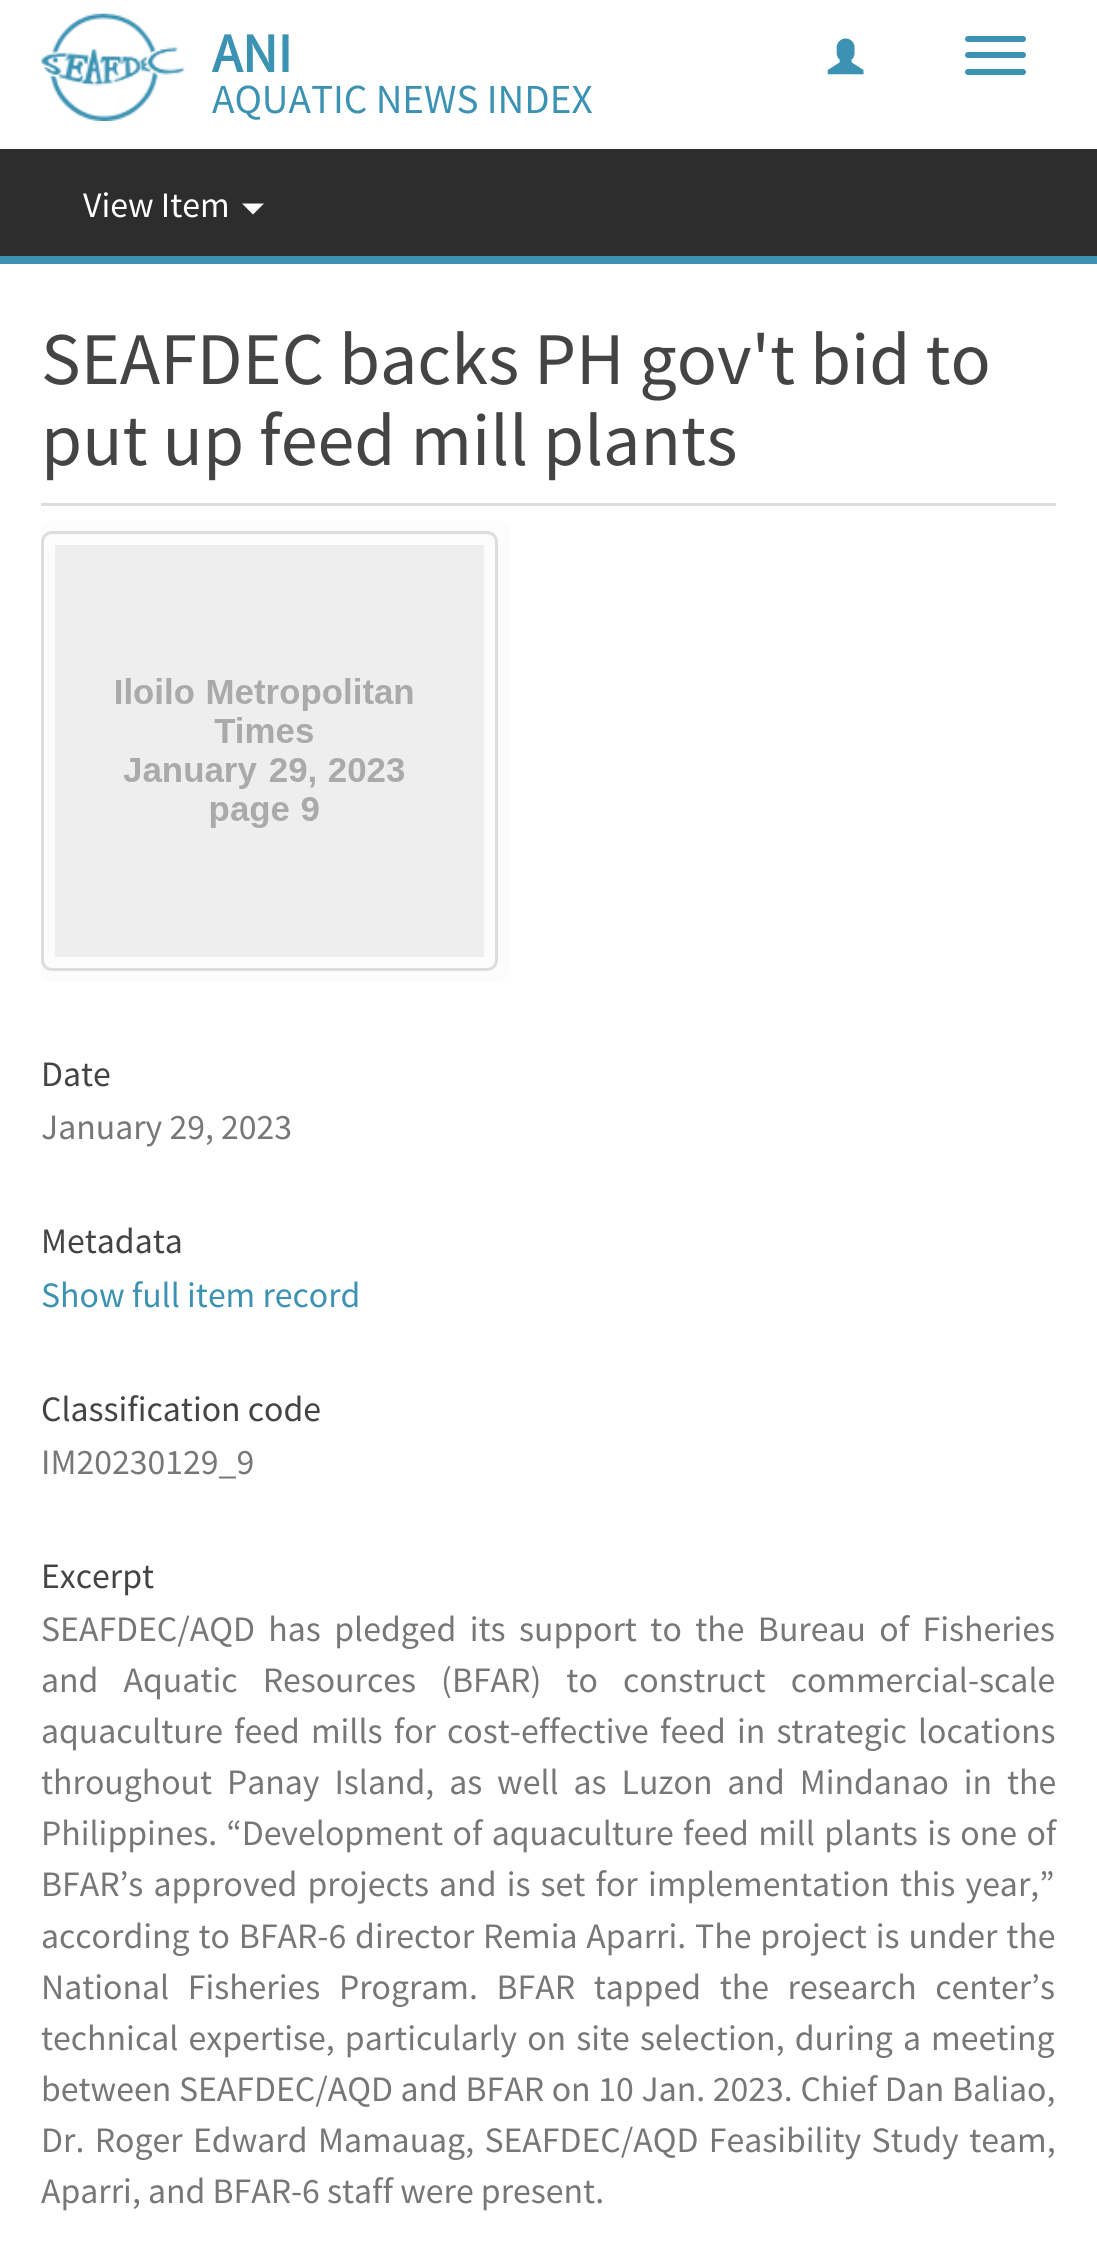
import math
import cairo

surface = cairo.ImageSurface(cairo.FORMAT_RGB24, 1097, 2244)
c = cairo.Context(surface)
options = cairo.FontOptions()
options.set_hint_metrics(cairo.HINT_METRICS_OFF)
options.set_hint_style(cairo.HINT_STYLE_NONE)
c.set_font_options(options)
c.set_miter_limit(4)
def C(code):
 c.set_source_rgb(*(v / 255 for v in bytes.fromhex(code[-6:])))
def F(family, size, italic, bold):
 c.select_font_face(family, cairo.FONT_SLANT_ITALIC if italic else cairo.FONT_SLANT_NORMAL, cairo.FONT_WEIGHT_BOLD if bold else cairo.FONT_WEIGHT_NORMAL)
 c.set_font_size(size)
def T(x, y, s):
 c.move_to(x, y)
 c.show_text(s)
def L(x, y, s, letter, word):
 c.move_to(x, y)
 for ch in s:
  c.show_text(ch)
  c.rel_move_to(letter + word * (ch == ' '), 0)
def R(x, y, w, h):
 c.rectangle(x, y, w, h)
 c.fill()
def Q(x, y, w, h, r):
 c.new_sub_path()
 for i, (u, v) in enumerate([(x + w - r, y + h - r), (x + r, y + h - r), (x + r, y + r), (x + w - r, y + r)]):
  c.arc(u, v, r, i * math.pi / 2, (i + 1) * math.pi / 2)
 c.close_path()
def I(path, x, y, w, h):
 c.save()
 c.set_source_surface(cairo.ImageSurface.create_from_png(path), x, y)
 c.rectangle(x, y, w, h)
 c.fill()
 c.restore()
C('2d2d2d')
c.paint()
C('ffffff')
R(0,0,1097,149)
I('1.png',41,13,144,108)
F('Source Sans Pro',55,0,1)
C('3c92b3')
T(212,72,'ANI')
I('2.png',827,38,37,37)
Q(965,36,61,6,3)
c.fill()
Q(965,52,61,6,3)
c.fill()
Q(965,69,61,6,3)
c.fill()
F('Source Sans Pro',41.25,0,0)
T(212,113,'AQUATIC NEWS INDEX')
R(0,256,1097,8)
F('Source Sans Pro',35.75,0,0)
C('ffffff')
T(83,217,'View Item')
c.new_path()
c.move_to(242,203.5)
c.line_to(264,203.5)
c.line_to(253,214.5)
c.close_path()
c.fill()
R(0,264,1097,1980)
C('dddddd')
R(41,503,1015,3)
F('Source Sans Pro',74.25,0,0)
C('444444')
T(41,384,'SEAFDEC backs PH gov\'t bid to')
T(41,465,'put up feed mill plants')
C('fcfcfc')
Q(41,520,468,462,11)
c.fill()
Q(42.5,532.5,454,437,9.5)
C('dddddd')
c.set_line_width(3)
c.stroke()
I('3.png',55,545,429,412)
F('Source Sans Pro',35.75,0,0)
C('444444')
T(41,1086,'Date')
C('777777')
T(41,1139,'January 29, 2023')
C('444444')
T(41,1253,'Metadata')
C('3c92b3')
T(41,1307,'Show full item record')
C('444444')
T(41,1421,'Classification code')
C('777777')
T(41,1474,'IM20230129_9')
C('444444')
T(41,1588,'Excerpt')
C('777777')
L(41,1641,'SEAFDEC/AQD has pledged its support to the Bureau of Fisheries',0,6.25)
L(41,1692,'and Aquatic Resources (BFAR) to construct commercial-scale',0,18)
L(41,1743,'aquaculture feed mills for cost-effective feed in strategic locations',0,4)
L(41,1794,'throughout Panay Island, as well as Luzon and Mindanao in the',0,7.75)
L(41,1845,'Philippines. “Development of aquaculture feed mill plants is one of',0,2.25)
L(41,1896,'BFAR’s approved projects and is set for implementation this year,”',0,3)
L(41,1948,'according to BFAR-6 director Remia Aparri. The project is under the',0,1.75)
L(41,1999,'National Fisheries Program. BFAR tapped the research center’s',0,11.5)
L(41,2050,'technical expertise, particularly on site selection, during a meeting',0,3)
L(41,2101,'between SEAFDEC/AQD and BFAR on 10 Jan. 2023. Chief Dan Baliao,',0,.5)
L(41,2152,'Dr. Roger Edward Mamauag, SEAFDEC/AQD Feasibility Study team,',0,3.25)
T(41,2203,'Aparri, and BFAR-6 staff were present.')
surface.write_to_png('o.png')
